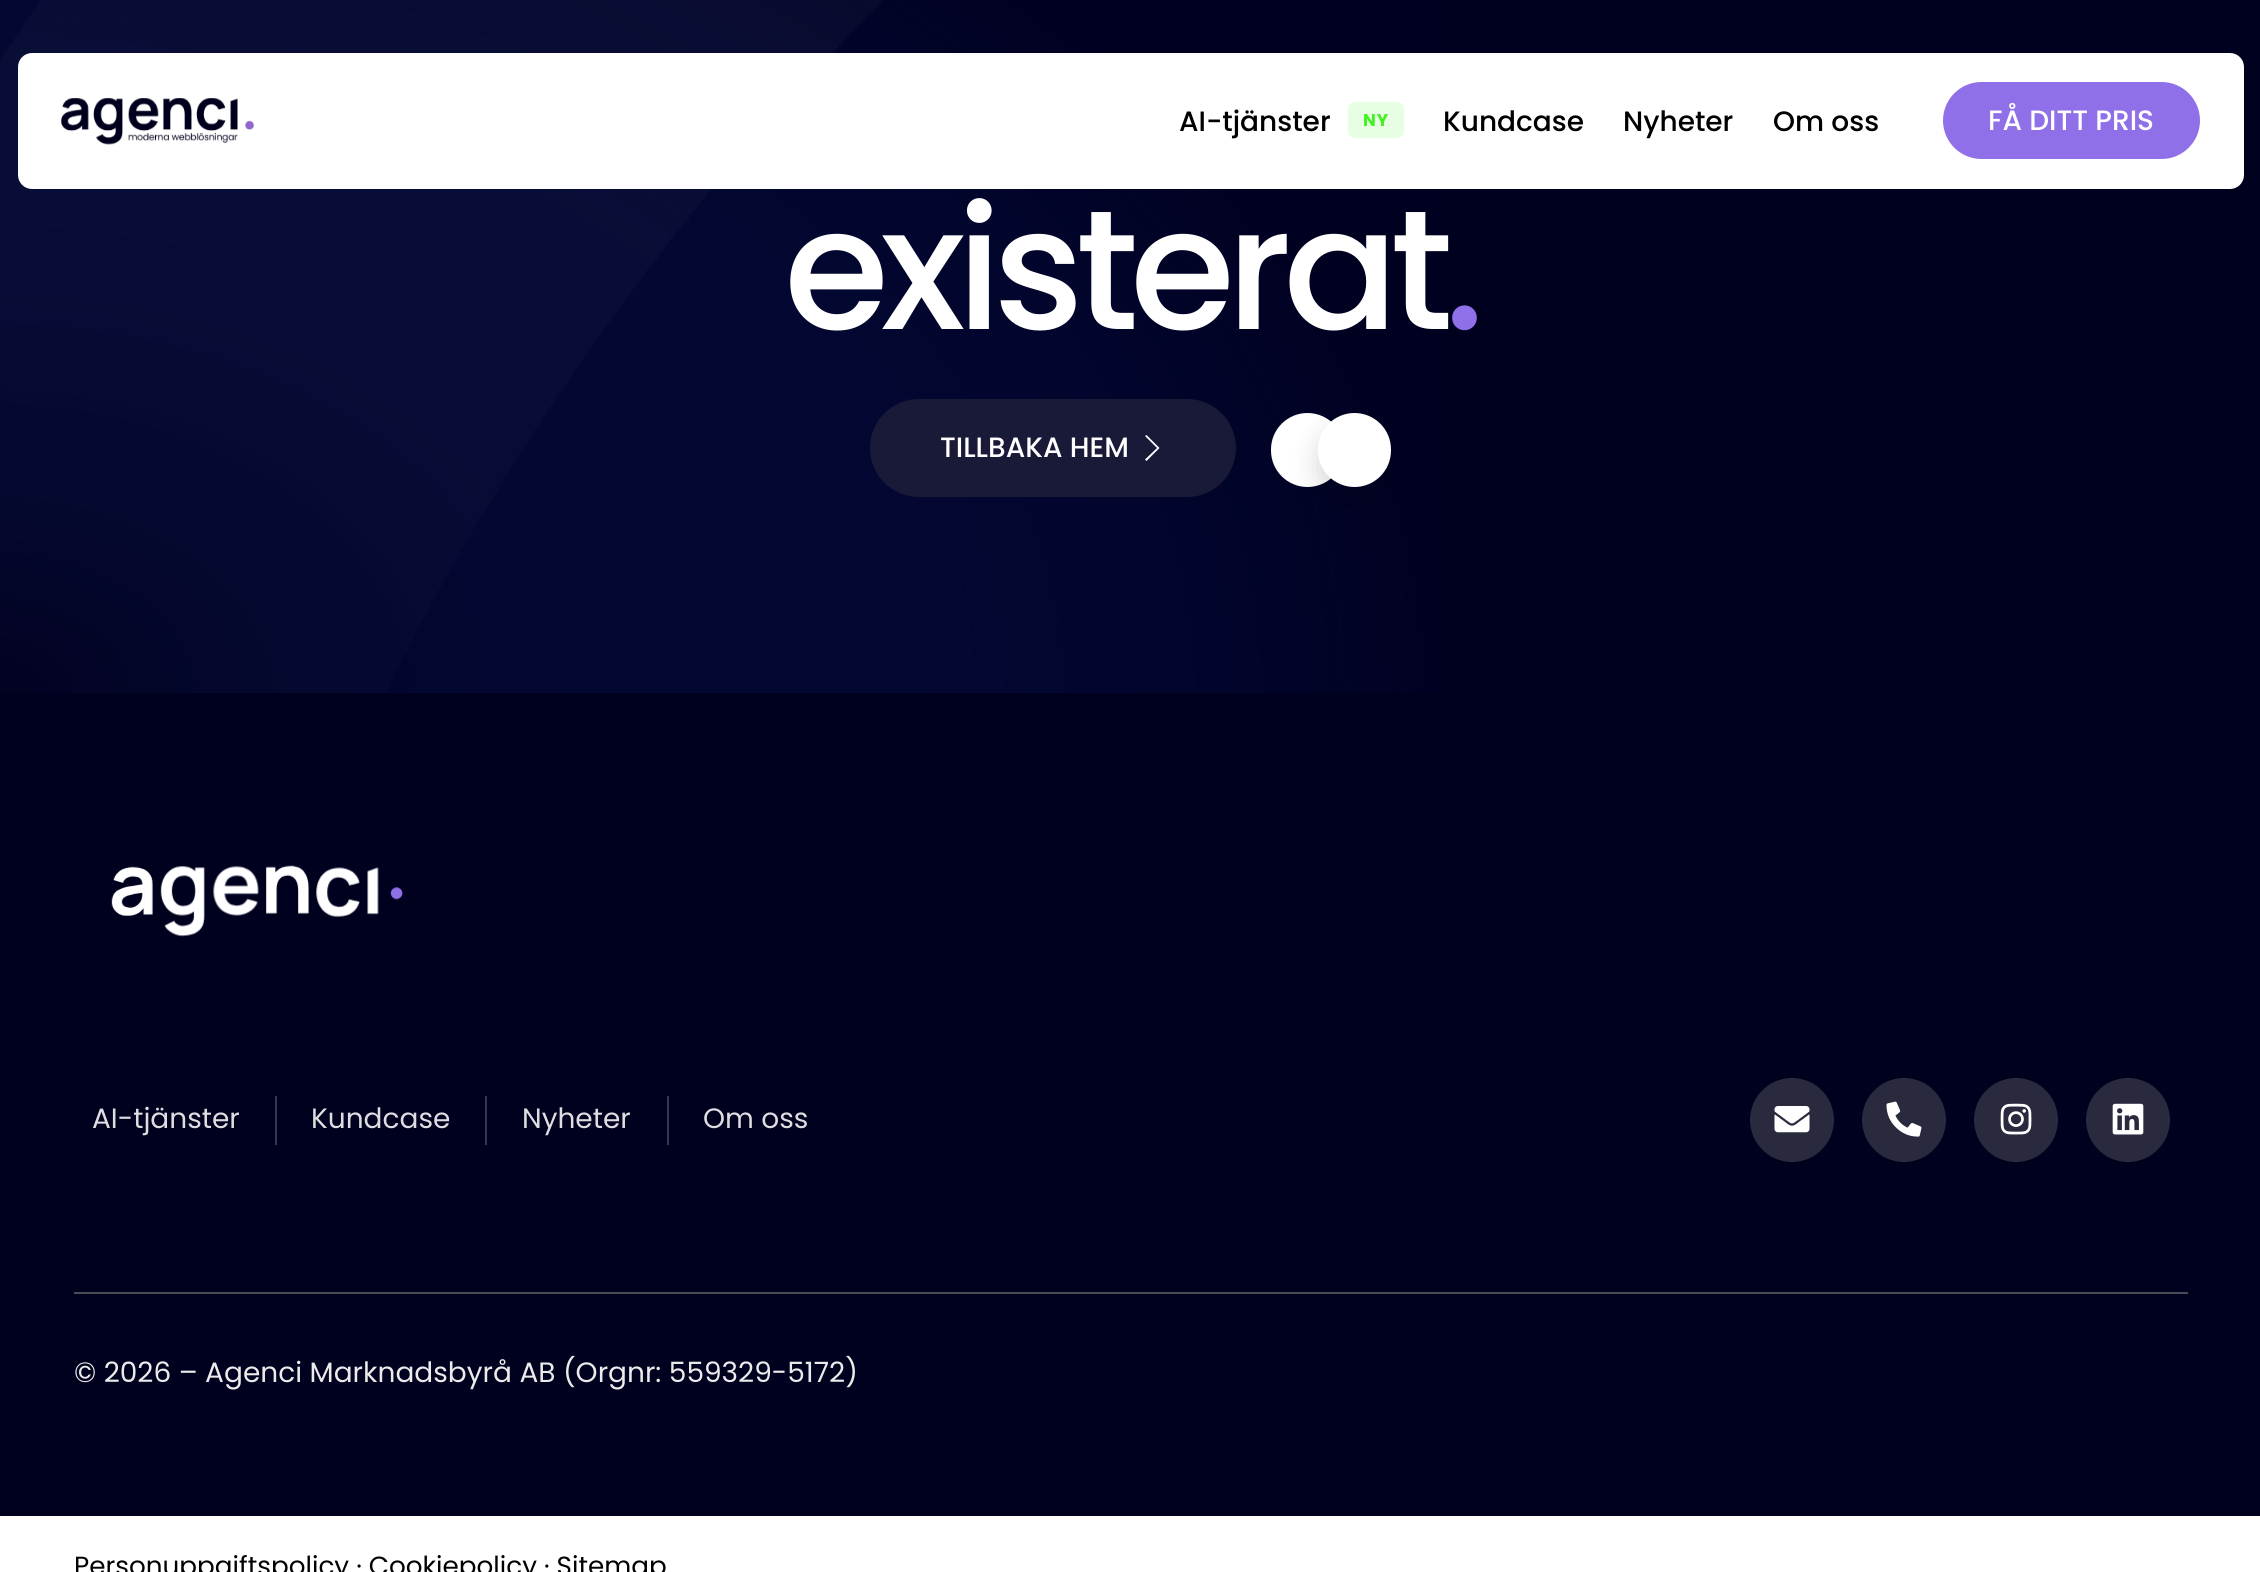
import math
import cairo

surface = cairo.ImageSurface(cairo.FORMAT_RGB24, 2260, 1572)
c = cairo.Context(surface)
options = cairo.FontOptions()
options.set_hint_metrics(cairo.HINT_METRICS_OFF)
options.set_hint_style(cairo.HINT_STYLE_NONE)
c.set_font_options(options)
c.set_miter_limit(4)
def C(code):
 c.set_source_rgb(*(v / 255 for v in bytes.fromhex(code[-6:])))
def F(family, size, italic, bold):
 c.select_font_face(family, cairo.FONT_SLANT_ITALIC if italic else cairo.FONT_SLANT_NORMAL, cairo.FONT_WEIGHT_BOLD if bold else cairo.FONT_WEIGHT_NORMAL)
 c.set_font_size(size)
def T(x, y, s):
 c.move_to(x, y)
 c.show_text(s)
def L(x, y, s, letter, word):
 c.move_to(x, y)
 for ch in s:
  c.show_text(ch)
  c.rel_move_to(letter + word * (ch == ' '), 0)
def R(x, y, w, h):
 c.rectangle(x, y, w, h)
 c.fill()
def Q(x, y, w, h, r):
 c.new_sub_path()
 for i, (u, v) in enumerate([(x + w - r, y + h - r), (x + r, y + h - r), (x + r, y + r), (x + w - r, y + r)]):
  c.arc(u, v, r, i * math.pi / 2, (i + 1) * math.pi / 2)
 c.close_path()
def S(x, y, w, h, r, blur, alpha):
 c.push_group_with_content(cairo.CONTENT_ALPHA)
 c.set_operator(cairo.OPERATOR_SOURCE)
 for i in range(15, -16, -2):
  e = blur * i / 6
  if min(w, h) + 2 * e > 0:
   c.set_source_rgba(0, 0, 0, alpha * math.erfc((i - 1) / 8.5) / 2)
   Q(x - e, y - e, w + 2 * e, h + 2 * e, max(0, min(r + e + blur * .6, min(w, h) / 2 + e)))
   c.fill()
 c.mask(c.pop_group())
def I(path, x, y, w, h):
 c.save()
 c.set_source_surface(cairo.ImageSurface.create_from_png(path), x, y)
 c.rectangle(x, y, w, h)
 c.fill()
 c.restore()
C('00001f')
c.paint()
I('2.png',0,0,883,693)
gradient = cairo.RadialGradient(0,0,0,0,0,1)
gradient.set_matrix(cairo.Matrix(1 / 3198, 0, 0, 1 / 2225, -1 * 0 / 3198, -1 * 693 / 2225))
gradient.add_color_stop_rgba(0,0,0,0.122,.8)
gradient.add_color_stop_rgba(.45,0.055,0.153,0.502,.02)
c.set_source(gradient)
R(0,0,1442,693)
C('ffffff')
Q(18,53,2226,136,14)
c.fill()
I('1.png',61,98,193,47)
F('Poppins Medium',28,0,0)
C('000000')
T(1179,131,'AI-tjänster')
c.set_source_rgba(0.255,0.949,0.122,0.12)
Q(1348,102,56,36,7)
c.fill()
F('Poppins',17,0,1)
C('41f21f')
L(1363,126,'NY',1,0)
F('Poppins Medium',28,0,0)
C('000000')
T(1443,131,'Kundcase')
T(1623,131,'Nyheter')
T(1773,131,'Om oss')
C('8f70e8')
Q(1943,82,257,77,38.5)
c.fill()
C('ffffff')
T(1988,130,'FÅ DITT PRIS')
F('Poppins Medium',170,0,0)
L(784,329,'existerat',-8.5,0)
C('8f70e8')
L(1444,329,'.',-8.5,0)
C('191938')
Q(870,399,366,98,49)
c.fill()
F('Poppins Medium',28,0,0)
C('ffffff')
T(940,457,'TILLBAKA HEM')
c.new_path()
c.move_to(1159.5,448)
c.line_to(1146.5,461)
c.line_to(1145,459.5)
c.line_to(1157,448)
c.line_to(1145,436)
c.line_to(1146.5,435)
c.close_path()
c.fill()
Q(1271,413,73,74,36.5)
c.fill()
C('000000')
S(1318,427,73,74,36.5,14,.15)
C('ffffff')
Q(1318,413,73,74,36.5)
c.fill()
I('3.png',111,865,292,72)
C('4a4a59')
R(74,1292,2114,2)
F('Poppins',28,0,0)
C('dedee2')
T(92,1128,'AI-tjänster')
C('35354d')
R(275,1096,2,49)
C('dedee2')
T(311,1128,'Kundcase')
C('35354d')
R(485,1096,2,49)
C('dedee2')
T(522,1128,'Nyheter')
C('35354d')
R(667,1096,2,49)
C('dedee2')
T(703,1128,'Om oss')
C('2a2a3f')
c.new_path()
c.arc(1792,1120,42,0,2 * math.pi)
c.fill()
I('4.png',1774,1106,36,27)
c.arc(1904,1120,42,0,2 * math.pi)
c.fill()
I('5.png',1886,1101,36,36)
c.arc(2016,1120,42,0,2 * math.pi)
c.fill()
I('6.png',2000,1103,32,32)
c.arc(2128,1120,42,0,2 * math.pi)
c.fill()
I('7.png',2112,1103,32,32)
C('ebebeb')
T(74,1382,'© 2026 – Agenci Marknadsbyrå AB (Orgnr: 559329-5172)')
C('ffffff')
R(0,1516,2260,56)
F('Poppins',26.25,0,0)
C('000000')
T(74,1575,'Personuppgiftspolicy · Cookiepolicy · Sitemap')
surface.write_to_png('o.png')
